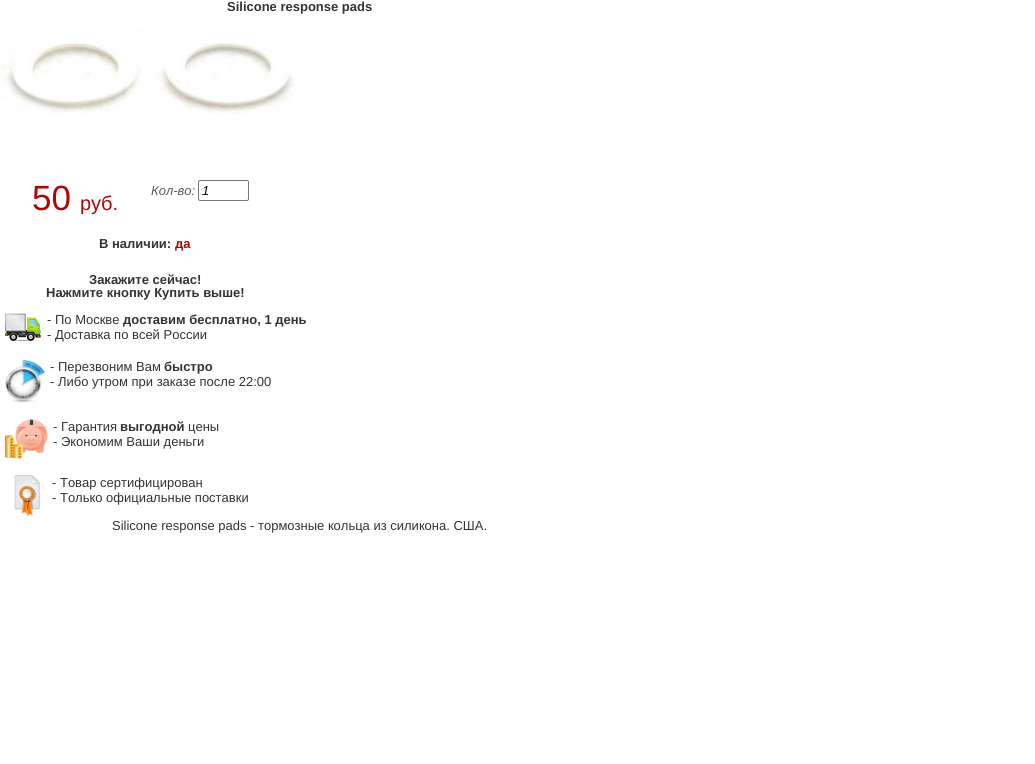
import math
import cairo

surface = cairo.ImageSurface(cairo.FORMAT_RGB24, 1035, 764)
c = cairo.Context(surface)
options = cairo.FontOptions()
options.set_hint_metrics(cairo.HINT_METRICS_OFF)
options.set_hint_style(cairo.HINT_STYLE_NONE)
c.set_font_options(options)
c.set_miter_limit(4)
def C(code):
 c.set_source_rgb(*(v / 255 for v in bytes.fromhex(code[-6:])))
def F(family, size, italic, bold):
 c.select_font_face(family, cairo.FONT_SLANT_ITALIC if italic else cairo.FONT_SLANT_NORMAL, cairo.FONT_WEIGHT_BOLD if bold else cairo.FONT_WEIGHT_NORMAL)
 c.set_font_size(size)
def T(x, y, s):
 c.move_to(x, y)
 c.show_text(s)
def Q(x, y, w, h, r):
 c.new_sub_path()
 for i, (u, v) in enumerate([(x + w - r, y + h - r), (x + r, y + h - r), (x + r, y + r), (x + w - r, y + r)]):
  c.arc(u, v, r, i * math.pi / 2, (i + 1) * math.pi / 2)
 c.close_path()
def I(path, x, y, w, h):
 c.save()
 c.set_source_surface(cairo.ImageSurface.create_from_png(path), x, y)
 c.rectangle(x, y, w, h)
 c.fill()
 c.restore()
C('ffffff')
c.paint()
F('Liberation Sans',13,0,1)
C('333333')
T(227,11,'Silicone response pads')
I('1.png',0,30,295,85)
F('Liberation Sans',35,0,0)
C('a80808')
T(32,210,'50')
F('Liberation Sans',20,0,0)
T(80,210,'руб.')
F('Liberation Sans',13,1,0)
C('615661')
T(151,195,'Кол-во:')
Q(198.5,180.5,50,20,1.5)
C('767676')
c.set_line_width(1)
c.stroke()
C('000000')
T(202,195,'1')
F('Liberation Sans',13,0,1)
C('333333')
T(99,248,'В наличии:')
C('a80808')
T(175,248,'да')
C('333333')
T(89,284,'Закажите сейчас!')
T(46,297,'Нажмите кнопку Купить выше!')
I('2.png',4,313,39,29)
F('Liberation Sans',13,0,0)
T(47,324,'- По Москве')
F('Liberation Sans',13,0,1)
T(123,324,'доставим бесплатно, 1 день')
F('Liberation Sans',13,0,0)
T(47,339,'- Доставка по всей России')
I('3.png',5,360,40,43)
T(50,371,'- Перезвоним Вам')
F('Liberation Sans',13,0,1)
T(164,371,'быстро')
F('Liberation Sans',13,0,0)
T(50,386,'- Либо утром при заказе после 22:00')
I('4.png',4,419,45,40)
T(53,431,'- Гарантия')
F('Liberation Sans',13,0,1)
T(120,431,'выгодной')
F('Liberation Sans',13,0,0)
T(188,431,'цены')
T(53,446,'- Экономим Ваши деньги')
I('5.png',14,475,27,42)
T(52,487,'- Товар сертифицирован')
T(52,502,'- Только официальные поставки')
T(112,530,'Silicone response pads - тормозные кольца из силикона. США.')
surface.write_to_png('o.png')
